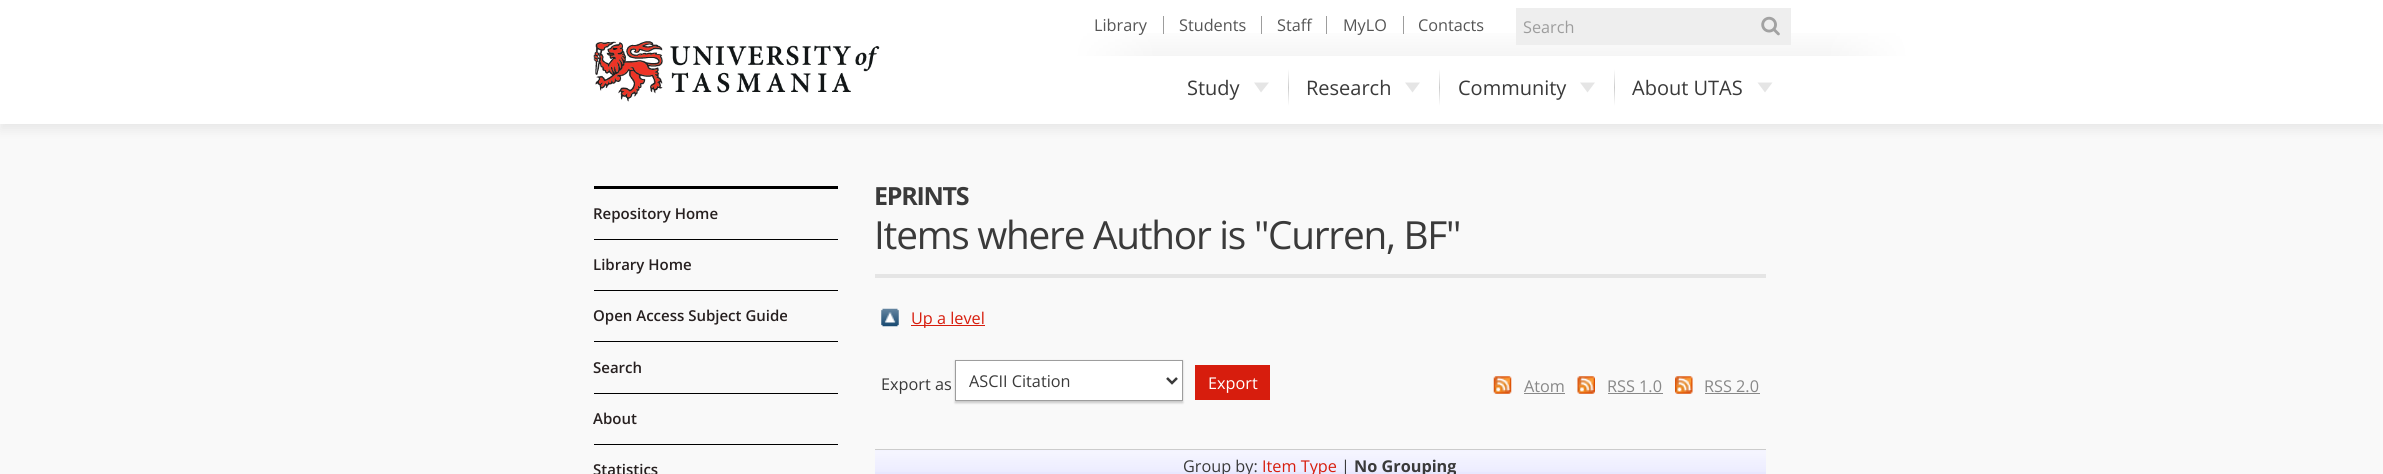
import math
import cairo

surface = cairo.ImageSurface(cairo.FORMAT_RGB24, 2383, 474)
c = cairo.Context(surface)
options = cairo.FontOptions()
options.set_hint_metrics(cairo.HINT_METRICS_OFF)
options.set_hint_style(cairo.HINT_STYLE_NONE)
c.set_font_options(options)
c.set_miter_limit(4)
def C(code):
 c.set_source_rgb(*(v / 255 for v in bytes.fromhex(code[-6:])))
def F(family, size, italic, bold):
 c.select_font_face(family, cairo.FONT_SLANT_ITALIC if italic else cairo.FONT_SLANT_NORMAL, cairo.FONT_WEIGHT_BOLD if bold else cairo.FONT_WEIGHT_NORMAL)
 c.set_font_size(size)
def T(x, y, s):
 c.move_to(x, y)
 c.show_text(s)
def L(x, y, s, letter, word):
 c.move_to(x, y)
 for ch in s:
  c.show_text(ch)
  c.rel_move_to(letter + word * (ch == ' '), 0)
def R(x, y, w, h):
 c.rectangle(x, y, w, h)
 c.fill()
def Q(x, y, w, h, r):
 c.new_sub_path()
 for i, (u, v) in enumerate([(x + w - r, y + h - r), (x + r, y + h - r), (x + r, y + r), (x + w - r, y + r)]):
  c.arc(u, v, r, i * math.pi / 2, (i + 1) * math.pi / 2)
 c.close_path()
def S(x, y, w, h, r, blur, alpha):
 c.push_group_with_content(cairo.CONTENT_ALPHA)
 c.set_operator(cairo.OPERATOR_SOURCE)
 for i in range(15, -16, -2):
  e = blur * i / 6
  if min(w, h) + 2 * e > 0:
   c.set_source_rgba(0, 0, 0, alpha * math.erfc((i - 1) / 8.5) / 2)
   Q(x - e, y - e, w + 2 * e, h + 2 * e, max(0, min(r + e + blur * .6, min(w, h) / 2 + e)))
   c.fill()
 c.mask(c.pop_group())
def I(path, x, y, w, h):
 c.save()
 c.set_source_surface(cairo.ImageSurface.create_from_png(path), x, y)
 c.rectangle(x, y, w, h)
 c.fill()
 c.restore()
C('f9f9f9')
c.paint()
C('000000')
S(0,6,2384,124,0,6,.07)
C('ffffff')
R(0,0,2383,124)
gradient = cairo.LinearGradient(1491,25,1491,56)
gradient.add_color_stop_rgba(0,1,1,1,1)
gradient.add_color_stop_rgba(1,0.961,0.961,0.961,1)
c.set_source(gradient)
R(1073,33,837,23)
gradient = cairo.LinearGradient(1073,41,1910,41)
gradient.add_color_stop_rgba(0,1,1,1,1)
gradient.add_color_stop_rgba(.1,1,1,1,0)
gradient.add_color_stop_rgba(.9,1,1,1,0)
gradient.add_color_stop_rgba(1,1,1,1,1)
c.set_source(gradient)
R(1073,33,837,23)
F('Open Sans',16.25,0,0)
C('555555')
T(1094,31,'Library')
C('9d9d9d')
R(1163,16,1,18)
C('555555')
T(1179,31,'Students')
C('9d9d9d')
R(1261,16,1,18)
C('555555')
T(1277,31,'Staff')
C('9d9d9d')
R(1326,16,1,18)
C('555555')
T(1343,31,'MyLO')
C('9d9d9d')
R(1403,16,1,18)
C('555555')
T(1418,31,'Contacts')
C('eeeeee')
R(1516,8,275,37)
C('9d9d9d')
T(1523,33,'Search')
I('1.png',1761,16,19,20)
I('2.png',593,41,287,61)
F('Open Sans',20,0,0)
C('3a3a3a')
T(1187,95,'Study')
C('e5e5e5')
c.new_path()
c.move_to(1254,82.5)
c.line_to(1269,82.5)
c.line_to(1261,92.5)
c.close_path()
c.fill()
gradient = cairo.LinearGradient(1288,69,1288,106)
gradient.add_color_stop_rgba(0,1,1,1,1)
gradient.add_color_stop_rgba(.5,0.8,0.8,0.8,1)
gradient.add_color_stop_rgba(1,1,1,1,1)
c.set_source(gradient)
R(1288,69,1,37)
C('3a3a3a')
T(1306,95,'Research')
C('e5e5e5')
c.new_path()
c.move_to(1405,82.5)
c.line_to(1420,82.5)
c.line_to(1412.5,92.5)
c.close_path()
c.fill()
gradient = cairo.LinearGradient(1439,69,1439,106)
gradient.add_color_stop_rgba(0,1,1,1,1)
gradient.add_color_stop_rgba(.5,0.8,0.8,0.8,1)
gradient.add_color_stop_rgba(1,1,1,1,1)
c.set_source(gradient)
R(1439,69,1,37)
C('3a3a3a')
T(1458,95,'Community')
C('e5e5e5')
c.new_path()
c.move_to(1580,82.5)
c.line_to(1595,82.5)
c.line_to(1587.5,92.5)
c.close_path()
c.fill()
gradient = cairo.LinearGradient(1614,69,1614,106)
gradient.add_color_stop_rgba(0,1,1,1,1)
gradient.add_color_stop_rgba(.5,0.8,0.8,0.8,1)
gradient.add_color_stop_rgba(1,1,1,1,1)
c.set_source(gradient)
R(1614,69,1,37)
C('3a3a3a')
T(1632,95,'About UTAS')
C('e5e5e5')
c.new_path()
c.move_to(1757.5,82.5)
c.line_to(1772.5,82.5)
c.line_to(1765,92.5)
c.close_path()
c.fill()
C('000000')
R(594,186,244,3)
R(594,239,244,1)
F('Open Sans SemiBold',15,0,0)
C('272020')
T(593,219,'Repository Home')
C('000000')
R(594,290,244,1)
C('272020')
T(593,270,'Library Home')
C('000000')
R(594,341,244,1)
C('272020')
T(593,321,'Open Access Subject Guide')
C('000000')
R(594,393,244,1)
C('272020')
T(593,373,'Search')
C('000000')
R(594,444,244,1)
C('272020')
T(593,424,'About')
T(593,475,'Statistics')
C('e5e5e5')
R(875,274,891,4)
F('Open Sans',25,0,1)
C('3a3a3a')
L(874,205,'EPRINTS',-1.25,0)
F('Open Sans',38.75,0,0)
L(874,249,'Items where Author is "Curren, BF"',-1.25,0)
I('3.png',881,308,18,19)
C('d71d0d')
R(911,325,74,1)
F('Open Sans',16.25,0,0)
T(911,324,'Up a level')
C('3a3a3a')
T(881,390,'Export as')
C('000000')
S(955,361,228,42,0,1,.2)
C('ffffff')
c.rectangle(955.5,360.5,227,40)
c.fill_preserve()
C('9d9d9d')
c.set_line_width(1)
c.stroke()
c.new_path()
c.move_to(1167,378)
c.line_to(1172,383)
c.line_to(1177,378)
C('3a3a3a')
c.set_line_width(2.5)
c.stroke()
T(969,387,'ASCII Citation')
C('d71d0d')
R(1195,365,75,35)
C('ffffff')
T(1208,389,'Export')
I('4.png',1493,376,19,18)
C('888888')
T(1524,392,'Atom')
R(1524,393,41,1)
I('5.png',1577,376,18,18)
T(1607,392,'RSS 1.0')
R(1608,393,55,1)
I('6.png',1675,376,18,18)
T(1704,392,'RSS 2.0')
R(1705,393,55,1)
C('e8e8ff')
R(875,450,891,24)
I('7.png',875,450,891,22)
C('cccccc')
R(875,449,891,1)
C('3a3a3a')
T(1183,472,'Group by:')
C('d71d0d')
T(1262,472,'Item Type')
C('3a3a3a')
T(1341,472,'|')
F('Open Sans',16.25,0,1)
T(1354,472,'No Grouping')
surface.write_to_png('o.png')
